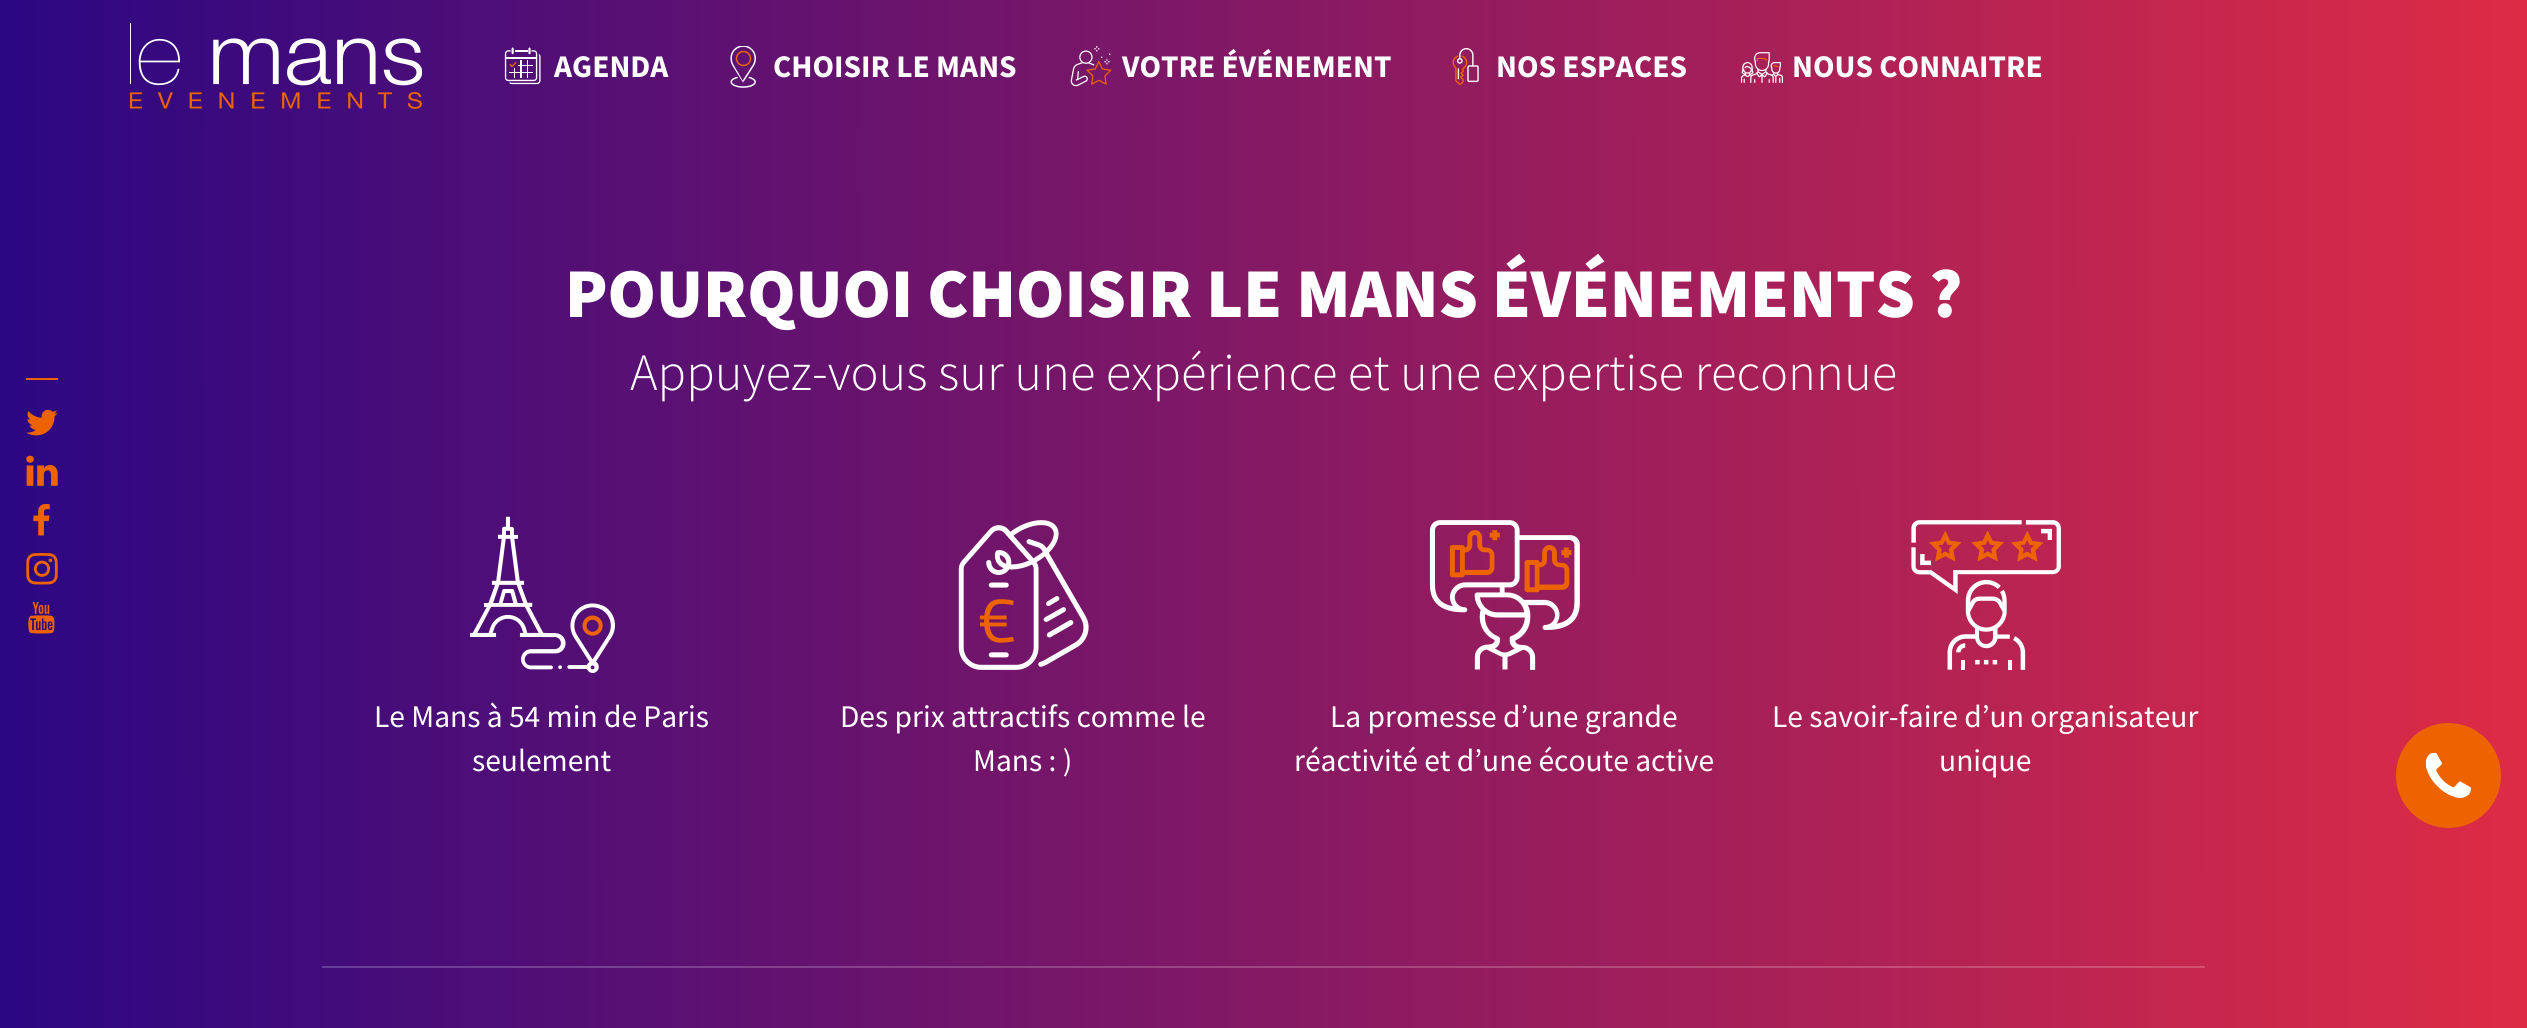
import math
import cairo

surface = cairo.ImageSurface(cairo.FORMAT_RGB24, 2527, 1028)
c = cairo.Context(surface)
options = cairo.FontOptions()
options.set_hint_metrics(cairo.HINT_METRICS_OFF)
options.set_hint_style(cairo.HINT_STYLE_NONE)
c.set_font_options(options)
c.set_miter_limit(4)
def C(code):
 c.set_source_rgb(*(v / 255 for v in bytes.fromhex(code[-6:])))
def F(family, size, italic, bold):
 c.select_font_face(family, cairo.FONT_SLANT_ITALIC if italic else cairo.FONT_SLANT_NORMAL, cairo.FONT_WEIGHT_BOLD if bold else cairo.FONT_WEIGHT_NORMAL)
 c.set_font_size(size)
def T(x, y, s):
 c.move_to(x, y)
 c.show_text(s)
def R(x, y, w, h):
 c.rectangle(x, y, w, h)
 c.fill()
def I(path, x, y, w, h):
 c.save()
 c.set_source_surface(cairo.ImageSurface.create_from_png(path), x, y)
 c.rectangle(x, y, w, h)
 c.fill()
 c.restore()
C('ffffff')
c.paint()
gradient = cairo.LinearGradient(0,26,2527,26)
gradient.add_color_stop_rgba(0,0.169,0.027,0.514,1)
gradient.add_color_stop_rgba(1,0.867,0.169,0.271,1)
c.set_source(gradient)
R(0,0,2527,131)
I('1.png',130,23,292,86)
I('2.png',504,47,37,38)
F('Source Sans Pro',31.5,0,1)
C('ffffff')
T(554,77,'AGENDA')
I('3.png',730,46,26,42)
T(773,77,'CHOISIR LE MANS')
I('4.png',1070,46,42,41)
T(1122,77,'VOTRE ÉVÉNEMENT')
I('5.png',1452,48,27,37)
T(1496,77,'NOS ESPACES')
I('6.png',1740,52,43,31)
T(1792,77,'NOUS CONNAITRE')
gradient = cairo.LinearGradient(0,585,2527,584)
gradient.add_color_stop_rgba(0,0.169,0.027,0.514,1)
gradient.add_color_stop_rgba(1,0.867,0.169,0.271,1)
c.set_source(gradient)
R(0,131,2527,897)
C('ec6300')
R(26,378,32,2)
I('7.png',26,410,32,26)
I('8.png',26,455,32,31)
I('9.png',33,504,17,32)
I('10.png',26,553,32,32)
I('11.png',28,602,27,32)
gradient = cairo.LinearGradient(0,585,2527,584)
gradient.add_color_stop_rgba(0,0.333,0.224,0.612,1)
gradient.add_color_stop_rgba(1,0.894,0.333,0.416,1)
c.set_source(gradient)
R(322,966,1883,2)
F('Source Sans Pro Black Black',70,0,0)
C('ffffff')
T(565,317,'POURQUOI CHOISIR LE MANS ÉVÉNEMENTS ?')
F('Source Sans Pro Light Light',52.5,0,0)
T(630,390,'Appuyez-vous sur une expérience et une expertise reconnue')
I('12.png',469,516,146,157)
F('Source Sans Pro',31.5,0,0)
T(374,727,'Le Mans à 54 min de Paris')
T(472,771,'seulement')
I('13.png',958,520,131,150)
T(840,727,'Des prix attractifs comme le')
T(973,771,'Mans : )')
I('14.png',1429,520,151,150)
T(1330,727,'La promesse d’une grande')
T(1294,771,'réactivité et d’une écoute active')
I('15.png',1911,520,150,150)
T(1772,727,'Le savoir-faire d’un organisateur')
T(1939,771,'unique')
C('ec6300')
c.new_path()
c.arc(2448.5,775.5,52.5,0,2 * math.pi)
c.fill()
I('16.png',2426,753,45,45)
surface.write_to_png('o.png')
